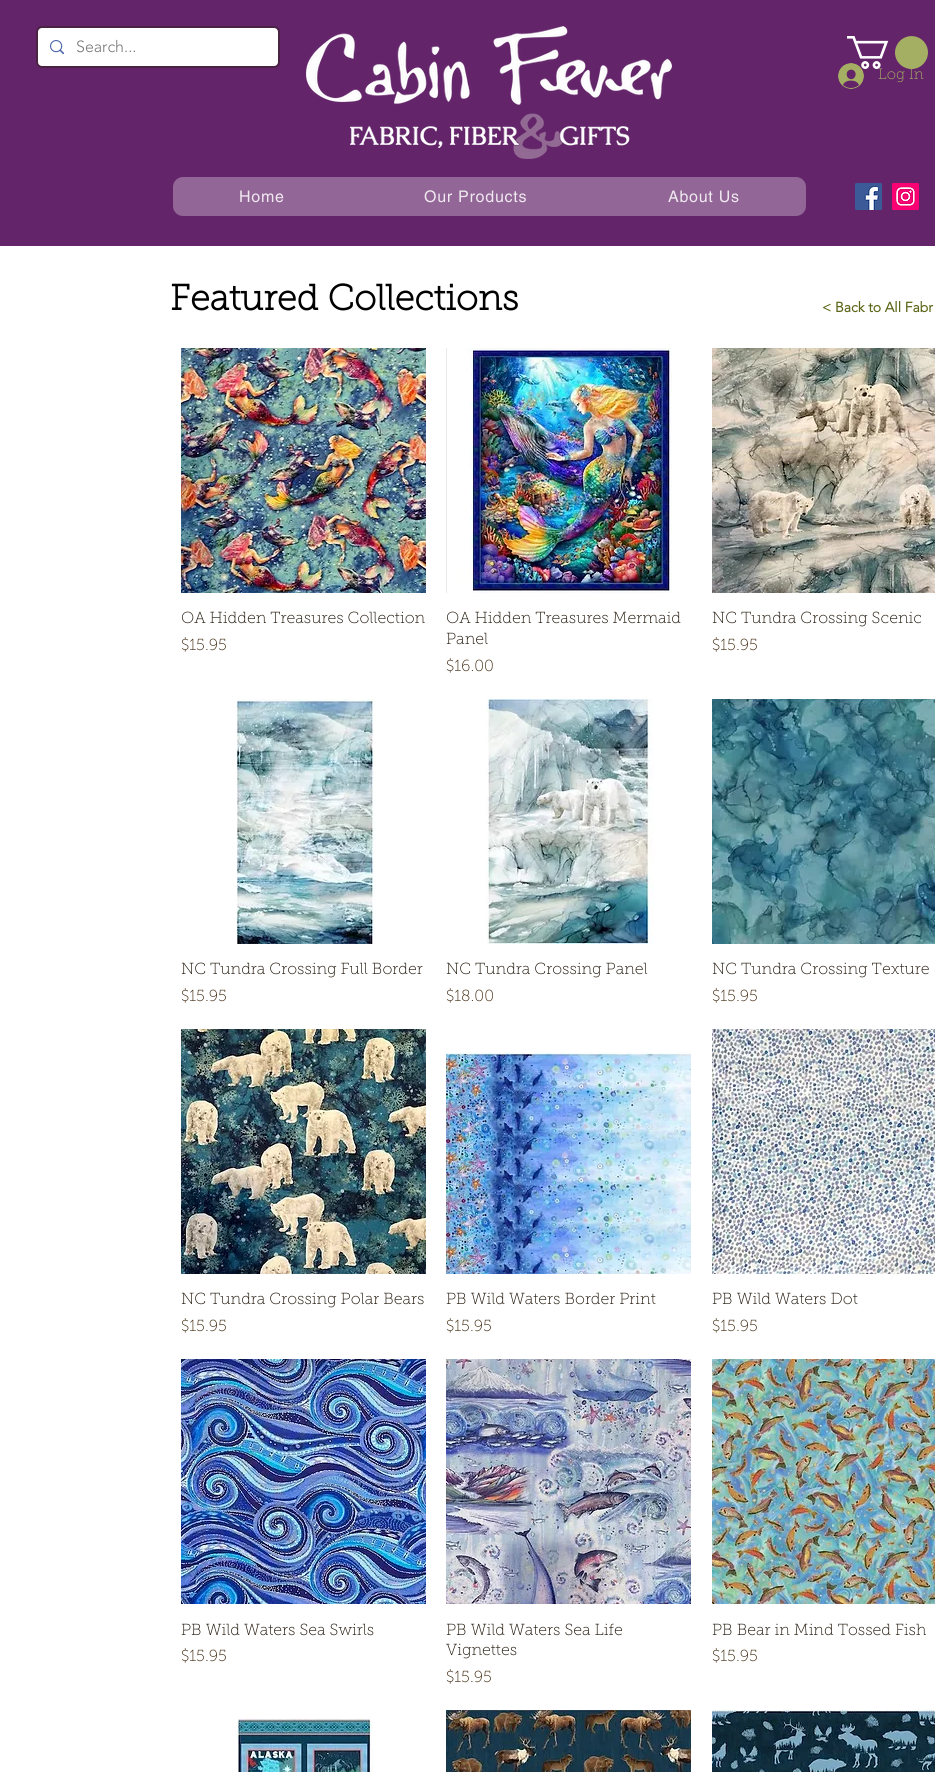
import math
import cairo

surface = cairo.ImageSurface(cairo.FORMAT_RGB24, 935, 1772)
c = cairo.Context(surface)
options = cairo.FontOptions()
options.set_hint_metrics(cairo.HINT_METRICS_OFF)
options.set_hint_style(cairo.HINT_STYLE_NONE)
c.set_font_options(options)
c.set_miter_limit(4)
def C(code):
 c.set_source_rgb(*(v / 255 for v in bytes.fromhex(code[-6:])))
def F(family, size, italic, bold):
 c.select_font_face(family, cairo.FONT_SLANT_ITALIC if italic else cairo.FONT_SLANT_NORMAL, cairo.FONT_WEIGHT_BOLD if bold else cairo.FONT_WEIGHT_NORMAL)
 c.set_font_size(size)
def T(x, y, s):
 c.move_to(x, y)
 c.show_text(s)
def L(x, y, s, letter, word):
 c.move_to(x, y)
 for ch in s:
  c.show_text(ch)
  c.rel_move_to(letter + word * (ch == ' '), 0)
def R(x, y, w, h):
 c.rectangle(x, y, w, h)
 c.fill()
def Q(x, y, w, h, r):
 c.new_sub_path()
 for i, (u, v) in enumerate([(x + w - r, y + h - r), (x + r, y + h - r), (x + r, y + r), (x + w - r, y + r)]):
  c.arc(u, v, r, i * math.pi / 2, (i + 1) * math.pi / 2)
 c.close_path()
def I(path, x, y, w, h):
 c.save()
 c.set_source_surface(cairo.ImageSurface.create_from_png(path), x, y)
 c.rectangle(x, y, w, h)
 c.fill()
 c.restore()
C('632469')
c.paint()
Q(37,27,242,40,5)
C('4a2244')
c.stroke()
C('ffffff')
Q(38,28,240,38,4)
c.fill()
I('1.png',50,40,14,14)
F('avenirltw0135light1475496 Light',16,0,0)
C('787878')
T(76,52,'Search...')
I('2.png',306,26,366,133)
I('3.png',847,36,81,33)
I('4.png',838,63,26,26)
F('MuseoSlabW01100 Thin',15,0,0)
C('a5af63')
T(878,79,'Log In')
C('926696')
Q(173,177,633,39,10)
c.fill()
F('helvetica',16,0,0)
C('efe8ef')
L(239,202,'Home',.75,0)
L(424,202,'Our Products',.75,0)
L(668,202,'About Us',.75,0)
I('5.png',855,183,27,27)
I('6.png',892,183,27,27)
C('ffffff')
R(0,246,935,1526)
F('MuseoSlabW01100',36,0,1)
C('000000')
T(170,310,'Featured Collections')
F('avenirltw0135light1475496',14,0,1)
C('5c6618')
T(822,312,'< Back to All Fabr')
I('7.png',181,348,245,245)
F('MuseoSlabW01100 Thin',16,0,0)
C('22180c')
T(181,623,'OA Hidden Treasures Collection')
C('453017')
T(181,650,'$15.95')
I('8.png',446,348,226,245)
C('22180c')
T(446,623,'OA Hidden Treasures Mermaid')
T(446,644,'Panel')
C('453017')
T(446,671,'$16.00')
I('9.png',712,348,223,245)
C('22180c')
T(712,623,'NC Tundra Crossing Scenic')
C('453017')
T(712,650,'$15.95')
I('10.png',236,699,140,245)
C('22180c')
T(181,974,'NC Tundra Crossing Full Border')
C('453017')
T(181,1001,'$15.95')
I('11.png',486,699,168,245)
C('22180c')
T(446,974,'NC Tundra Crossing Panel')
C('453017')
T(446,1001,'$18.00')
I('12.png',712,699,223,245)
C('22180c')
T(712,974,'NC Tundra Crossing Texture')
C('453017')
T(712,1001,'$15.95')
I('13.png',181,1029,245,245)
C('22180c')
T(181,1304,'NC Tundra Crossing Polar Bears')
C('453017')
T(181,1331,'$15.95')
I('14.png',446,1052,245,222)
C('22180c')
T(446,1304,'PB Wild Waters Border Print')
C('453017')
T(446,1331,'$15.95')
I('15.png',712,1029,223,245)
C('22180c')
T(712,1304,'PB Wild Waters Dot')
C('453017')
T(712,1331,'$15.95')
I('16.png',181,1359,245,245)
C('22180c')
T(181,1635,'PB Wild Waters Sea Swirls')
C('453017')
T(181,1661,'$15.95')
I('17.png',446,1359,245,245)
C('22180c')
T(446,1635,'PB Wild Waters Sea Life')
T(446,1655,'Vignettes')
C('453017')
T(446,1682,'$15.95')
I('18.png',712,1359,223,245)
C('22180c')
T(712,1635,'PB Bear in Mind Tossed Fish')
C('453017')
T(712,1661,'$15.95')
I('19.png',237,1718,136,54)
I('20.png',446,1710,245,62)
I('21.png',712,1710,223,62)
surface.write_to_png('o.png')
